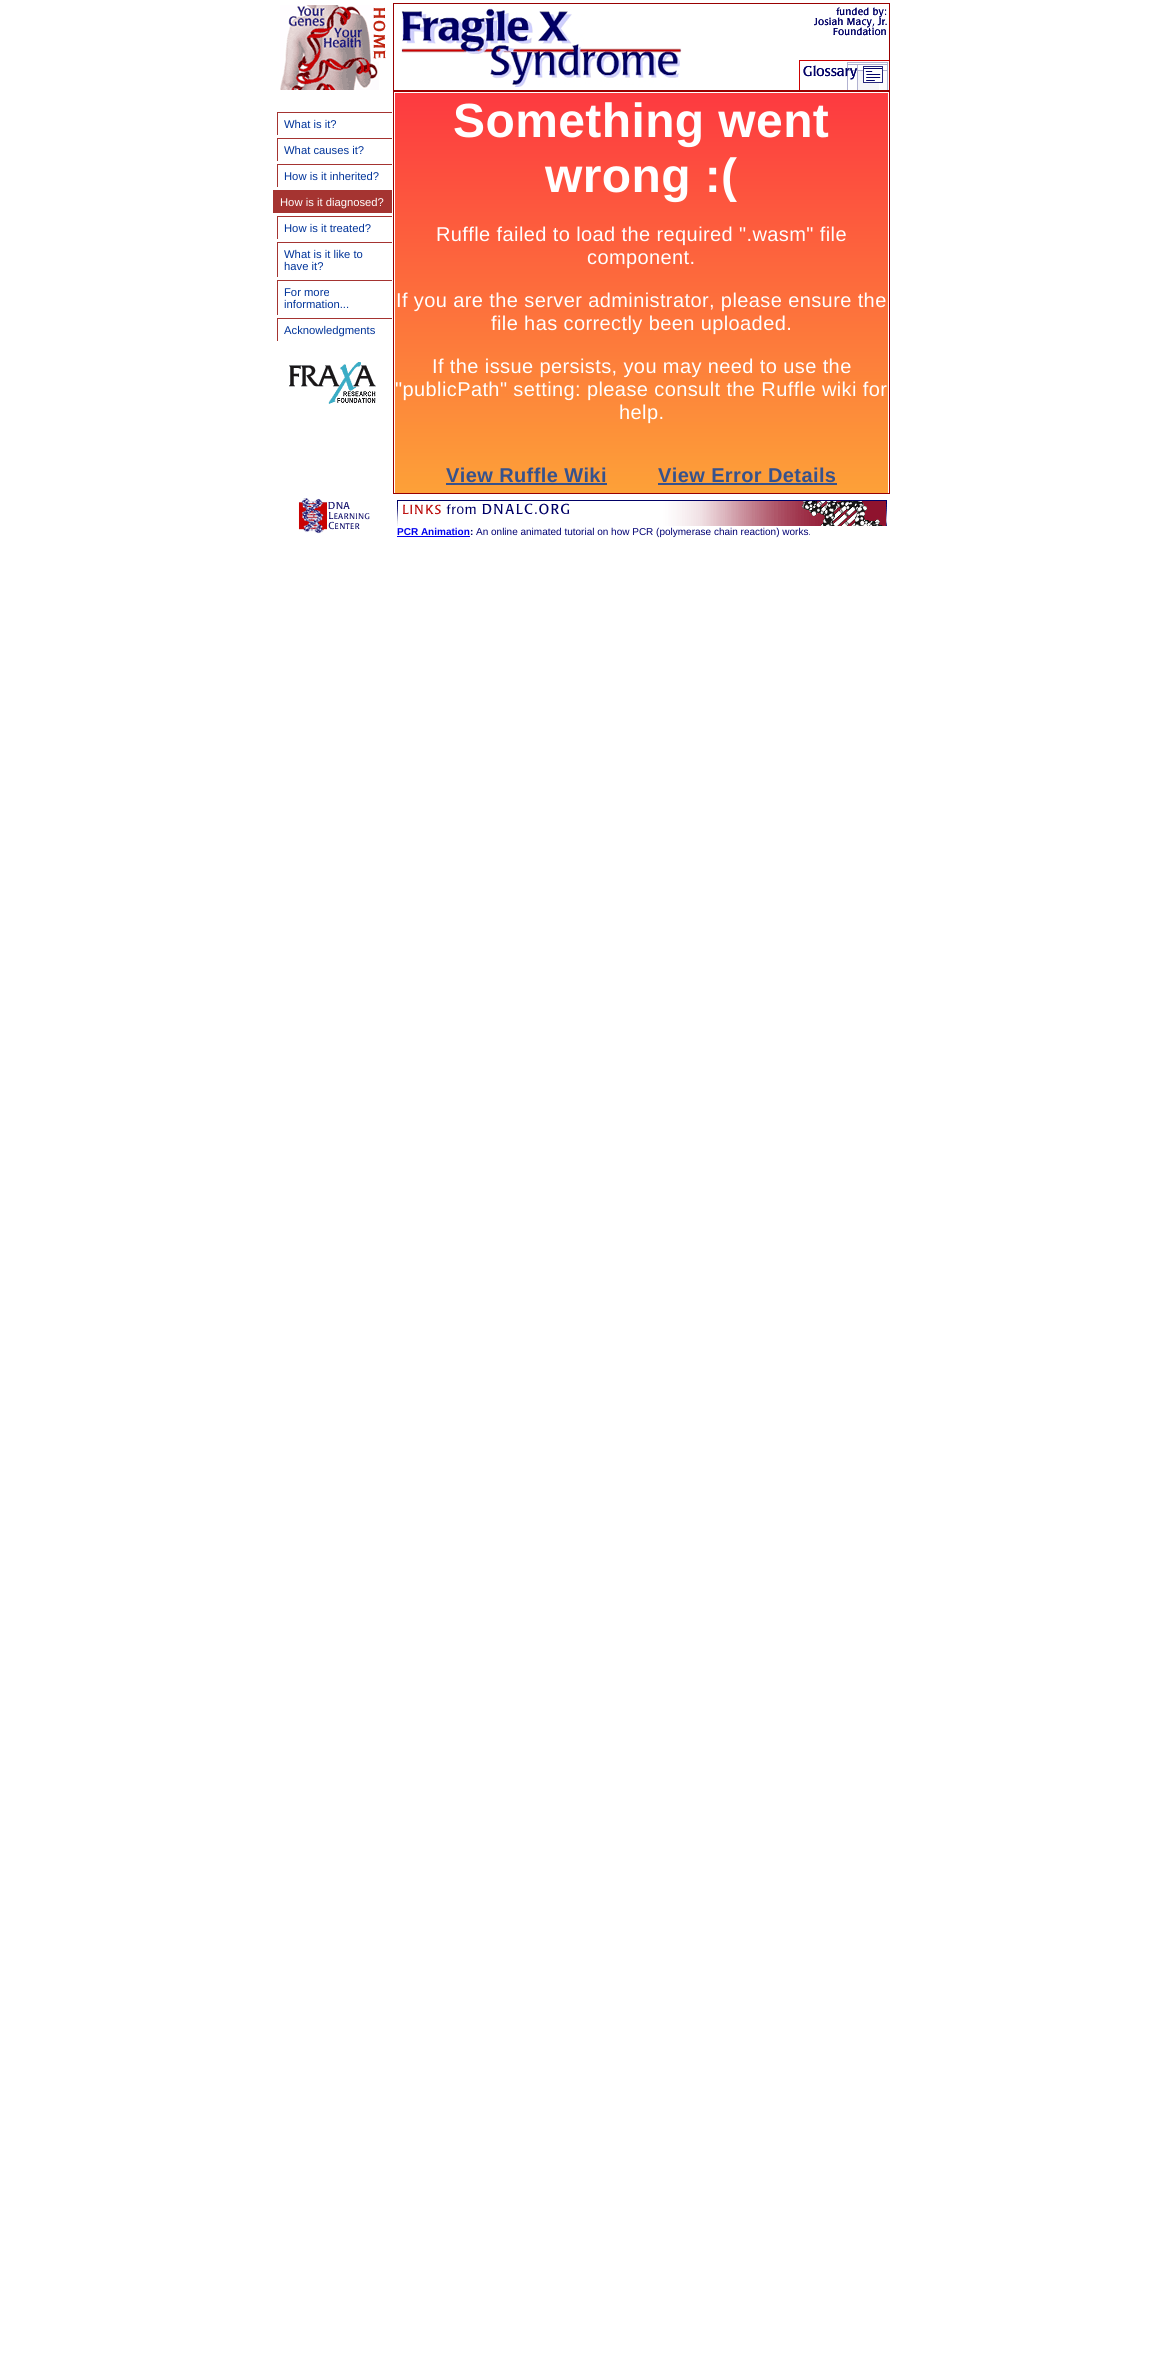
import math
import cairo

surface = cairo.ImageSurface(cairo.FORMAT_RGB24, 1162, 2372)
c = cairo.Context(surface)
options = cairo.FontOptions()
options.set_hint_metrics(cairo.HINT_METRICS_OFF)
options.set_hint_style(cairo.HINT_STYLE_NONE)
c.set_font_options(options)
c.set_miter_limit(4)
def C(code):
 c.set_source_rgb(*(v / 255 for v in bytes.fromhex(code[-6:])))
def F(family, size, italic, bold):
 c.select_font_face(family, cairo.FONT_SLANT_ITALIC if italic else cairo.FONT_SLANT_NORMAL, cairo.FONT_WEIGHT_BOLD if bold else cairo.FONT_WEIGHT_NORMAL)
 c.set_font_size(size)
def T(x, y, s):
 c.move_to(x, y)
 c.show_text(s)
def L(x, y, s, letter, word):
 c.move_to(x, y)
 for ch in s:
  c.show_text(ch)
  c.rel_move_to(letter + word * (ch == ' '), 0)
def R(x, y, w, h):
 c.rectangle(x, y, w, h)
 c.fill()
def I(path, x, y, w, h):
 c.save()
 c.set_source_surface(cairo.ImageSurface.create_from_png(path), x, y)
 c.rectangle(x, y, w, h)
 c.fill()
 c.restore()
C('ffffff')
c.paint()
I('1.png',280,5,106,85)
C('990000')
R(393,3,497,491)
C('ffffff')
R(394,4,495,86)
I('2.png',401,8,281,79)
I('3.png',814,7,73,29)
I('4.png',799,60,90,30)
C('a53431')
R(277,112,115,1)
R(277,112,1,23)
F('Liberation Sans',11.25,0,0)
C('003399')
T(284,128,'What is it?')
C('a53431')
R(277,138,115,1)
R(277,138,1,23)
C('003399')
T(284,154,'What causes it?')
C('a53431')
R(277,164,115,1)
R(277,164,1,23)
C('003399')
T(284,180,'How is it inherited?')
C('a53431')
R(273,190,119,23)
C('ffffff')
T(280,206,'How is it diagnosed?')
C('a53431')
R(277,216,115,1)
R(277,216,1,23)
C('003399')
T(284,232,'How is it treated?')
C('a53431')
R(277,242,115,1)
R(277,242,1,35)
C('003399')
T(284,258,'What is it like to')
T(284,270,'have it?')
C('a53431')
R(277,280,115,1)
R(277,280,1,35)
C('003399')
T(284,296,'For more')
T(284,308,'information...')
C('a53431')
R(277,318,115,1)
R(277,318,1,23)
C('003399')
T(284,334,'Acknowledgments')
I('5.png',289,362,87,42)
C('ffffff')
R(394,92,495,401)
gradient = cairo.LinearGradient(642,93,642,493)
gradient.add_color_stop_rgba(0,0.992,0.227,0.251,1)
gradient.add_color_stop_rgba(1,0.992,0.631,0.22,1)
c.set_source(gradient)
R(395,93,493,400)
F('Liberation Sans',48,0,1)
C('ffffff')
L(453,137,'Something went',.4,0)
L(545,192,'wrong :(',.4,0)
F('Liberation Sans',20,0,0)
L(436,241,'Ruffle failed to load the required ".wasm" file',.4,0)
L(587,264,'component.',.4,0)
L(396,307,'If you are the server administrator, please ensure the',.4,0)
L(491,330,'file has correctly been uploaded.',.4,0)
L(432,373,'If the issue persists, you may need to use the',.4,0)
L(395,396,'"publicPath" setting: please consult the Ruffle wiki for',.4,0)
L(619,419,'help.',.4,0)
F('Liberation Sans',20,0,1)
C('37528c')
L(446,482,'View Ruffle Wiki',.4,0)
R(446,483,161,2)
L(658,482,'View Error Details',.4,0)
R(658,483,179,2)
I('6.png',298,498,72,36)
I('7.png',397,500,490,26)
F('Liberation Sans',10,0,1)
C('0000ee')
T(397,535,'PCR Animation')
R(397,536,73,1)
C('000066')
T(470,535,':')
F('Liberation Sans',10,0,0)
C('000073')
T(476,535,'An online animated tutorial on how PCR (polymerase chain reaction) works.')
surface.write_to_png('o.png')
